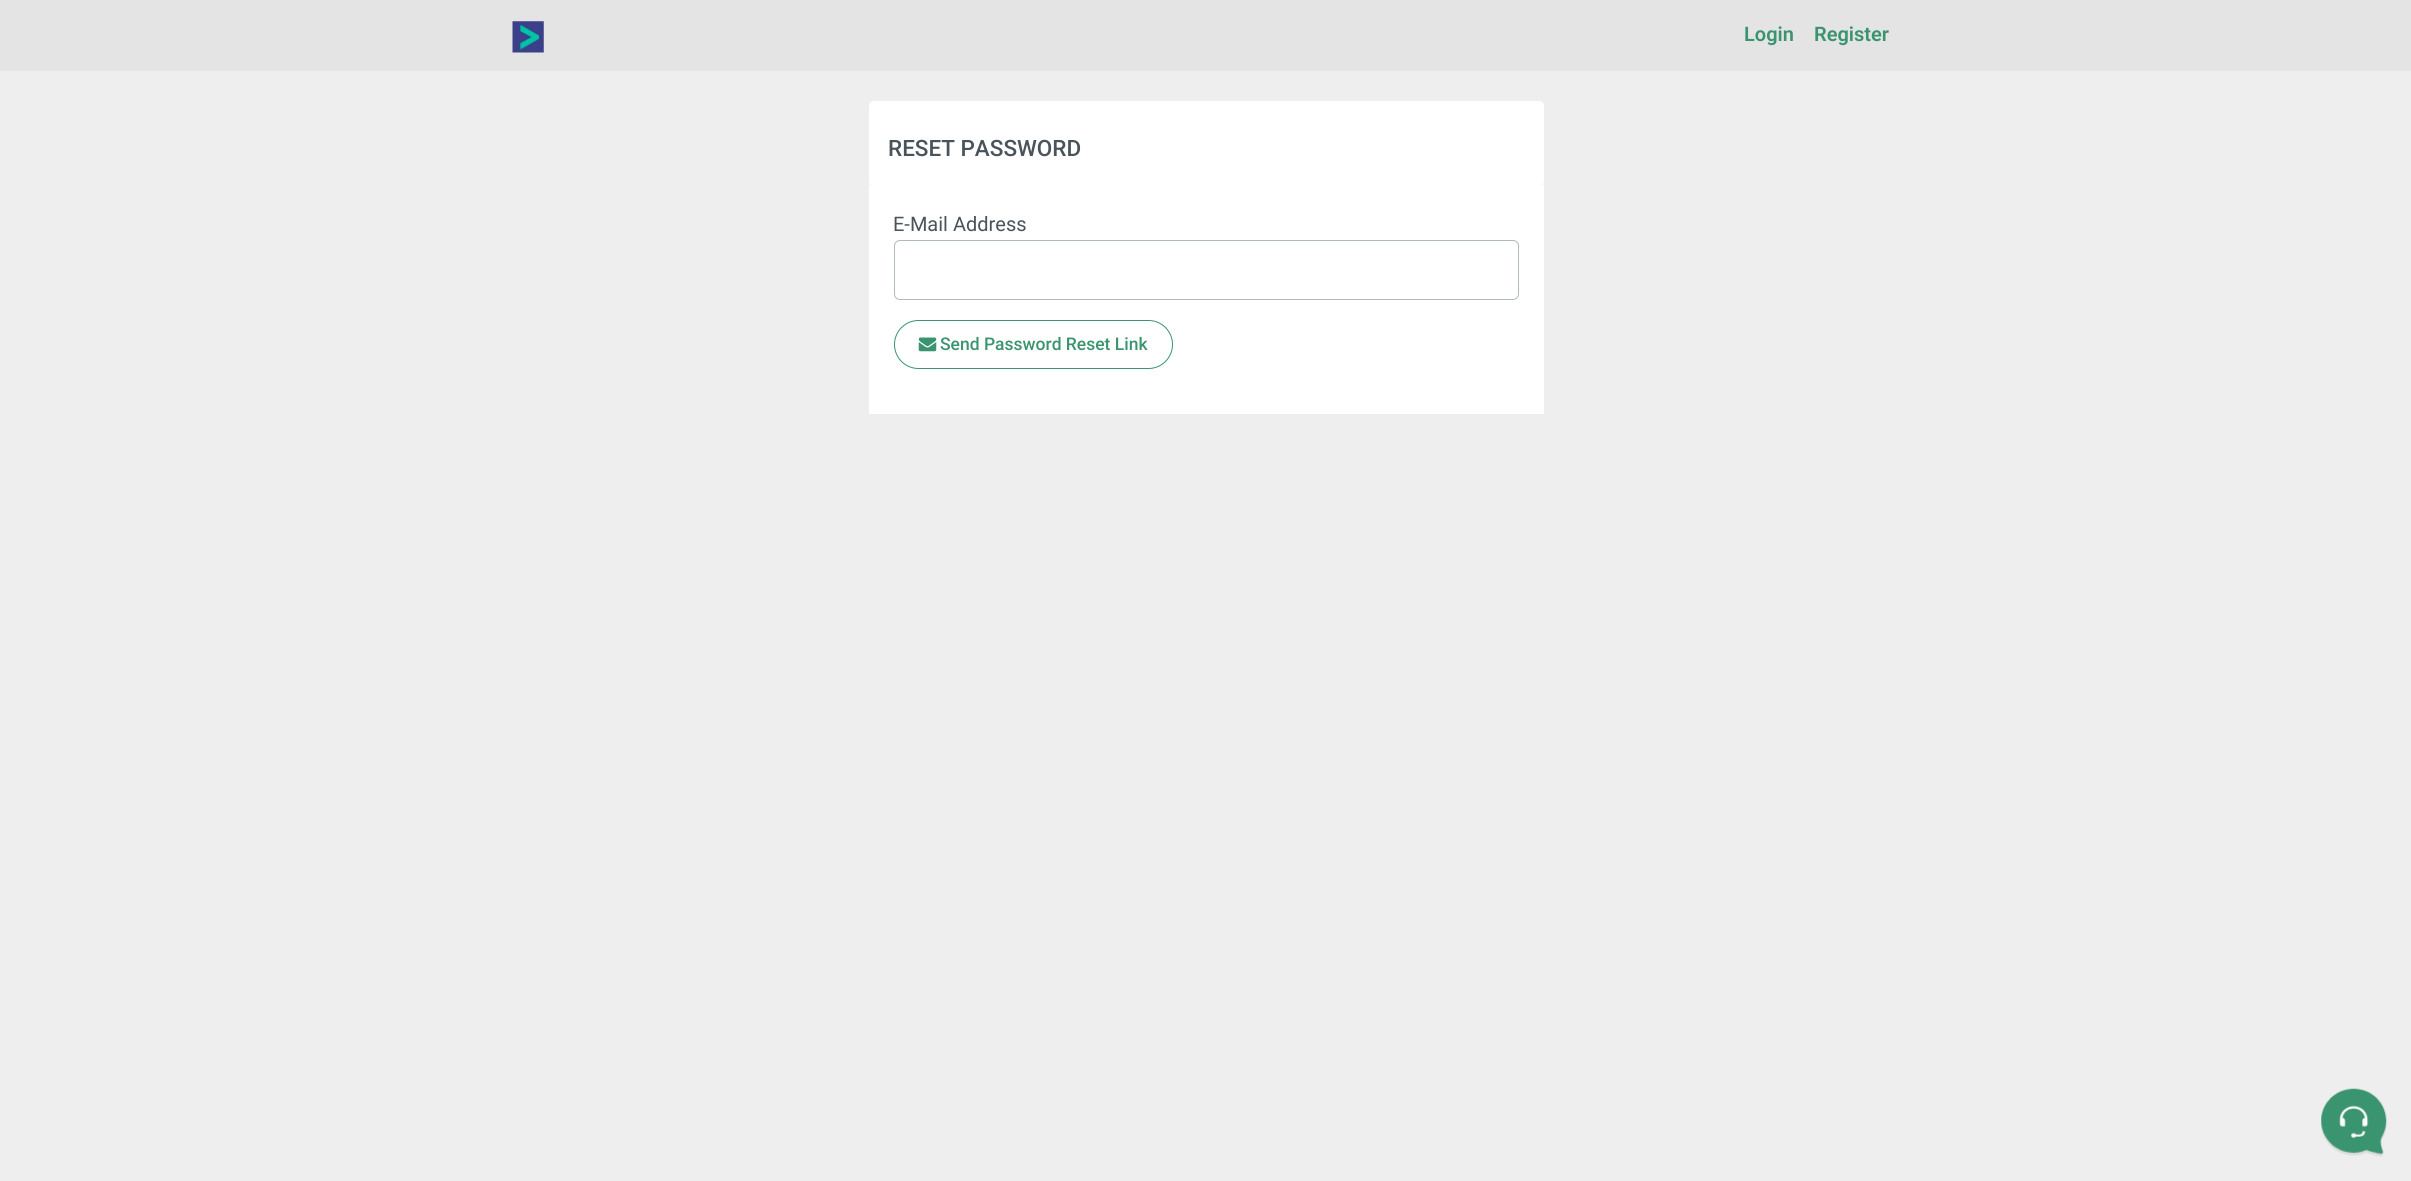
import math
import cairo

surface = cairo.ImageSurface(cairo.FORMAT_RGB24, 2411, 1181)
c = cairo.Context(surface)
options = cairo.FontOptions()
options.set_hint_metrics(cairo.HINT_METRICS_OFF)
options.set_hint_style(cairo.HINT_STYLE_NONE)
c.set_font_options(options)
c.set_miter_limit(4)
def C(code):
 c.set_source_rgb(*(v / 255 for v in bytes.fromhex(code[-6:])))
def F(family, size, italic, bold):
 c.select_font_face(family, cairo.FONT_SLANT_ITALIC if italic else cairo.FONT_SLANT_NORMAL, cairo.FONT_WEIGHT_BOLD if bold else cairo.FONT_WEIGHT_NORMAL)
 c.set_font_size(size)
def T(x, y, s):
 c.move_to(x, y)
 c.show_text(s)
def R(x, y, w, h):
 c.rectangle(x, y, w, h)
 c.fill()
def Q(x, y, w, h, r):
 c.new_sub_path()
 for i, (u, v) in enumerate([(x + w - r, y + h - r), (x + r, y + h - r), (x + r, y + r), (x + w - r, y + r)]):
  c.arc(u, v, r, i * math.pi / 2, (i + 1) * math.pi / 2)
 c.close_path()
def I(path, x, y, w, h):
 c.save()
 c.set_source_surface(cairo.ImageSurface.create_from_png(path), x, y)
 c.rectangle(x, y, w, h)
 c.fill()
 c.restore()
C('eeeeee')
c.paint()
C('e4e4e4')
R(0,0,2411,70)
C('e3e8ec')
R(0,70,2411,1)
I('1.png',512,21,32,32)
F('Roboto SemiBold',20,0,0)
C('39946f')
T(1744,41,'Login')
T(1814,41,'Register')
C('f6f8f9')
Q(869,101,675,313,5)
c.fill()
C('ffffff')
Q(869,101,675,84,5)
c.fill()
F('Roboto Medium',22.5,0,0)
C('49545a')
T(888,156,'RESET PASSWORD')
C('ffffff')
R(869,185,675,229)
F('Roboto',20,0,0)
C('49545a')
T(893,231,'E-Mail Address')
Q(894.5,240.5,624,59,5.5)
C('b0b9bf')
c.set_line_width(1)
c.stroke()
Q(894.5,320.5,278,48,24)
C('39946f')
c.stroke()
I('2.png',918,337,19,15)
F('Roboto Medium',17.5,0,0)
T(940,350,'Send Password Reset Link')
I('3.png',2321,1088,66,69)
surface.write_to_png('o.png')
